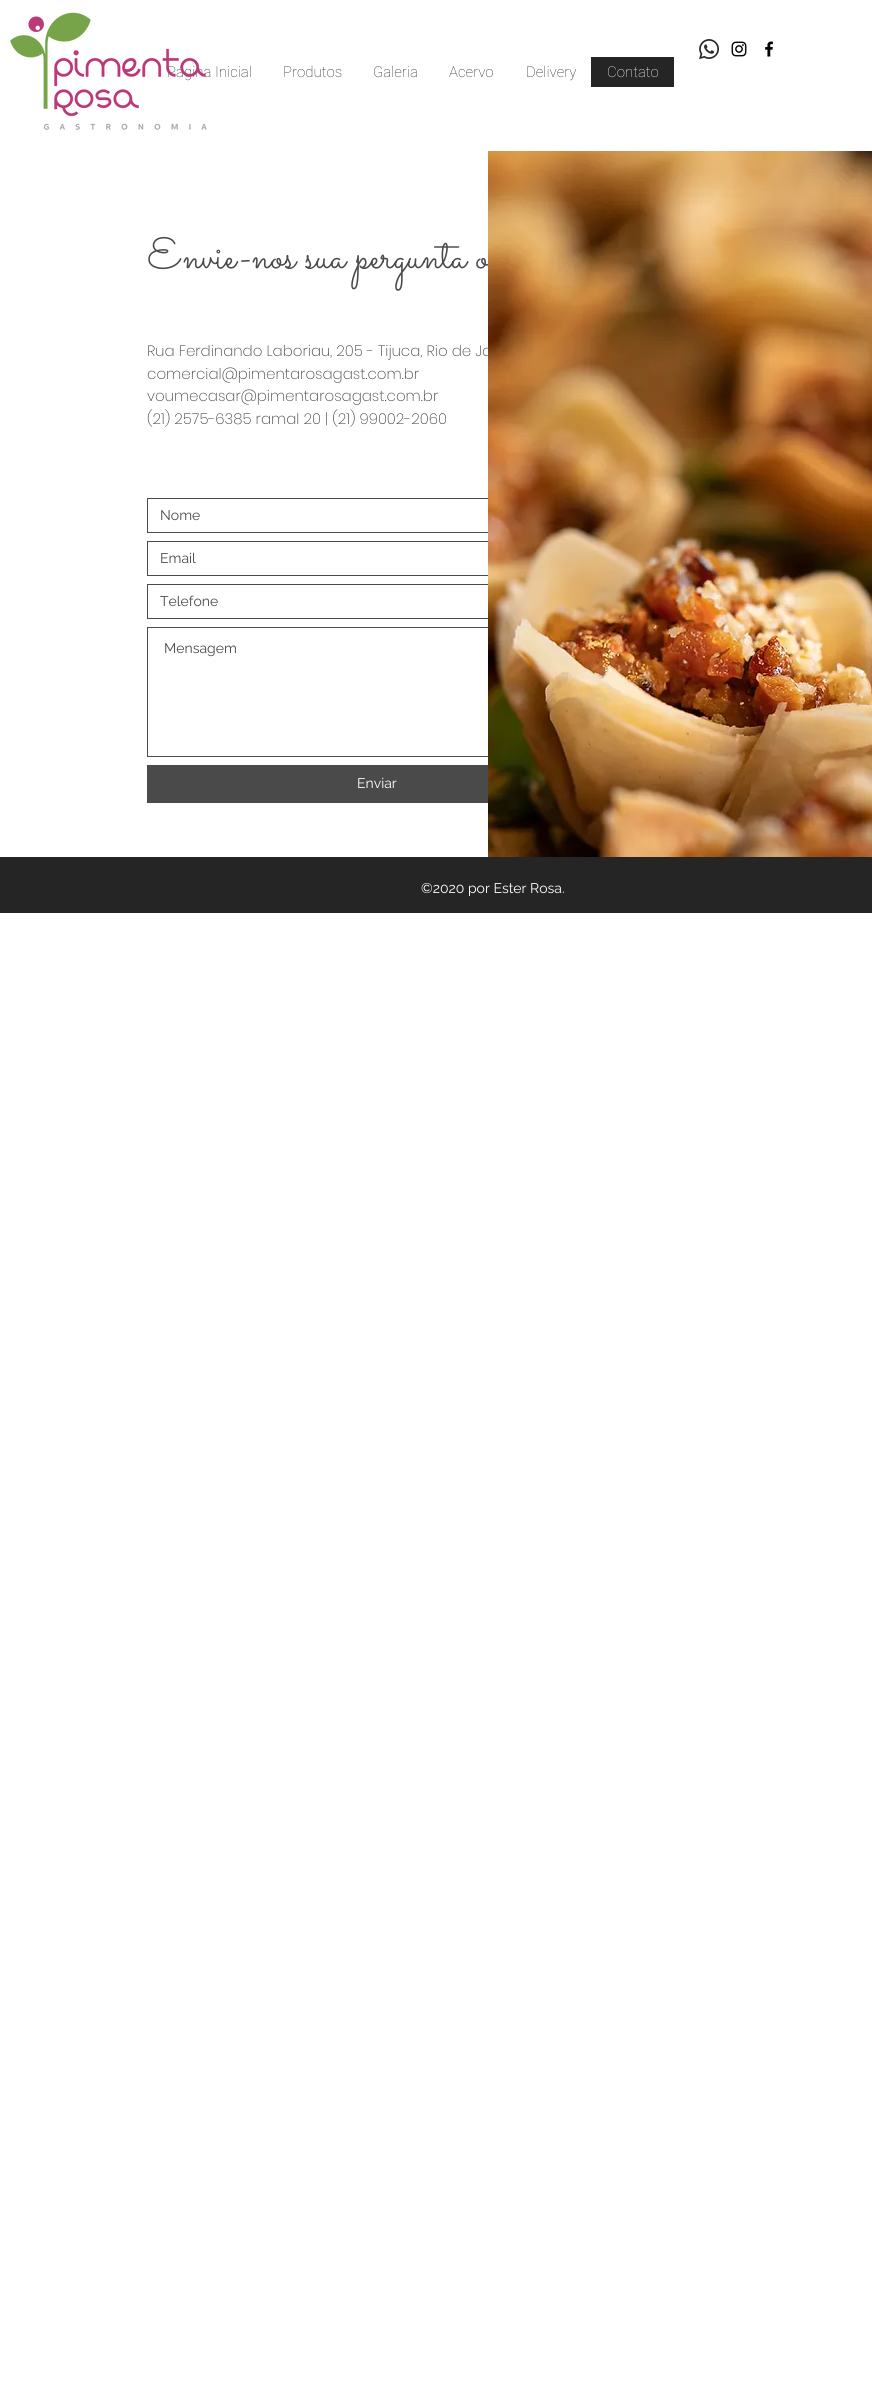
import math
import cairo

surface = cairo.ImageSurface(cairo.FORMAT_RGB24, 872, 2384)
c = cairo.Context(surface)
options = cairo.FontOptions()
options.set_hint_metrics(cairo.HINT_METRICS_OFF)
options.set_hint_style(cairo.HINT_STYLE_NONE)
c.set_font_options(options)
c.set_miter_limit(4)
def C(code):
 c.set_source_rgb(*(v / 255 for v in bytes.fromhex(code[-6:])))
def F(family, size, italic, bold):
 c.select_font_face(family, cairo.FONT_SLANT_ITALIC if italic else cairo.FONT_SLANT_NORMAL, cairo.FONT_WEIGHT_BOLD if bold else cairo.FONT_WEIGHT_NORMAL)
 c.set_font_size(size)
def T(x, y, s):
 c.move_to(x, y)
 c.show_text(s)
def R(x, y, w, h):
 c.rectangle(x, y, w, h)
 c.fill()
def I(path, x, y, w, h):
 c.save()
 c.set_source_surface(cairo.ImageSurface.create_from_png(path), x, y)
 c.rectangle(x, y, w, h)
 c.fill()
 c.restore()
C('ffffff')
c.paint()
F('Roboto Thin',15,0,0)
C('252525')
T(167,77,'Página Inicial')
I('1.png',10,12,197,118)
I('2.png',699,39,20,20)
I('3.png',731,41,16,16)
I('4.png',765,41,9,16)
T(283,77,'Produtos')
T(373,77,'Galeria')
T(449,77,'Acervo')
T(526,77,'Delivery')
R(591,57,83,30)
C('ffffff')
T(607,77,'Contato')
F('Sacramento',43,0,0)
C('4a4a4a')
T(147,268,'Envie-nos sua pergunta o')
F('Poppins ExtraLight',15,0,0)
T(147,356,'Rua Ferdinando Laboriau, 205 - Tijuca, Rio de Ja')
T(147,379,'comercial@pimentarosagast.com.br')
T(147,401,'voumecasar@pimentarosagast.com.br')
T(147,424,'(21) 2575-6385 ramal 20 | (21) 99002-2060')
c.rectangle(147.5,498.5,459,34)
c.set_line_width(1)
c.stroke()
F('Raleway',14,0,0)
T(160,520,'Nome')
c.rectangle(147.5,541.5,459,34)
c.stroke()
T(160,563,'Email')
c.rectangle(147.5,584.5,459,34)
c.stroke()
T(160,606,'Telefone')
c.rectangle(147.5,627.5,459,129)
c.stroke()
T(164,653,'Mensagem')
R(147,765,341,38)
C('ffffff')
T(357,788,'Enviar')
I('5.png',488,151,384,706)
C('252525')
R(0,857,872,56)
C('ffffff')
T(421,893,'©2020 por Ester Rosa.')
surface.write_to_png('o.png')
